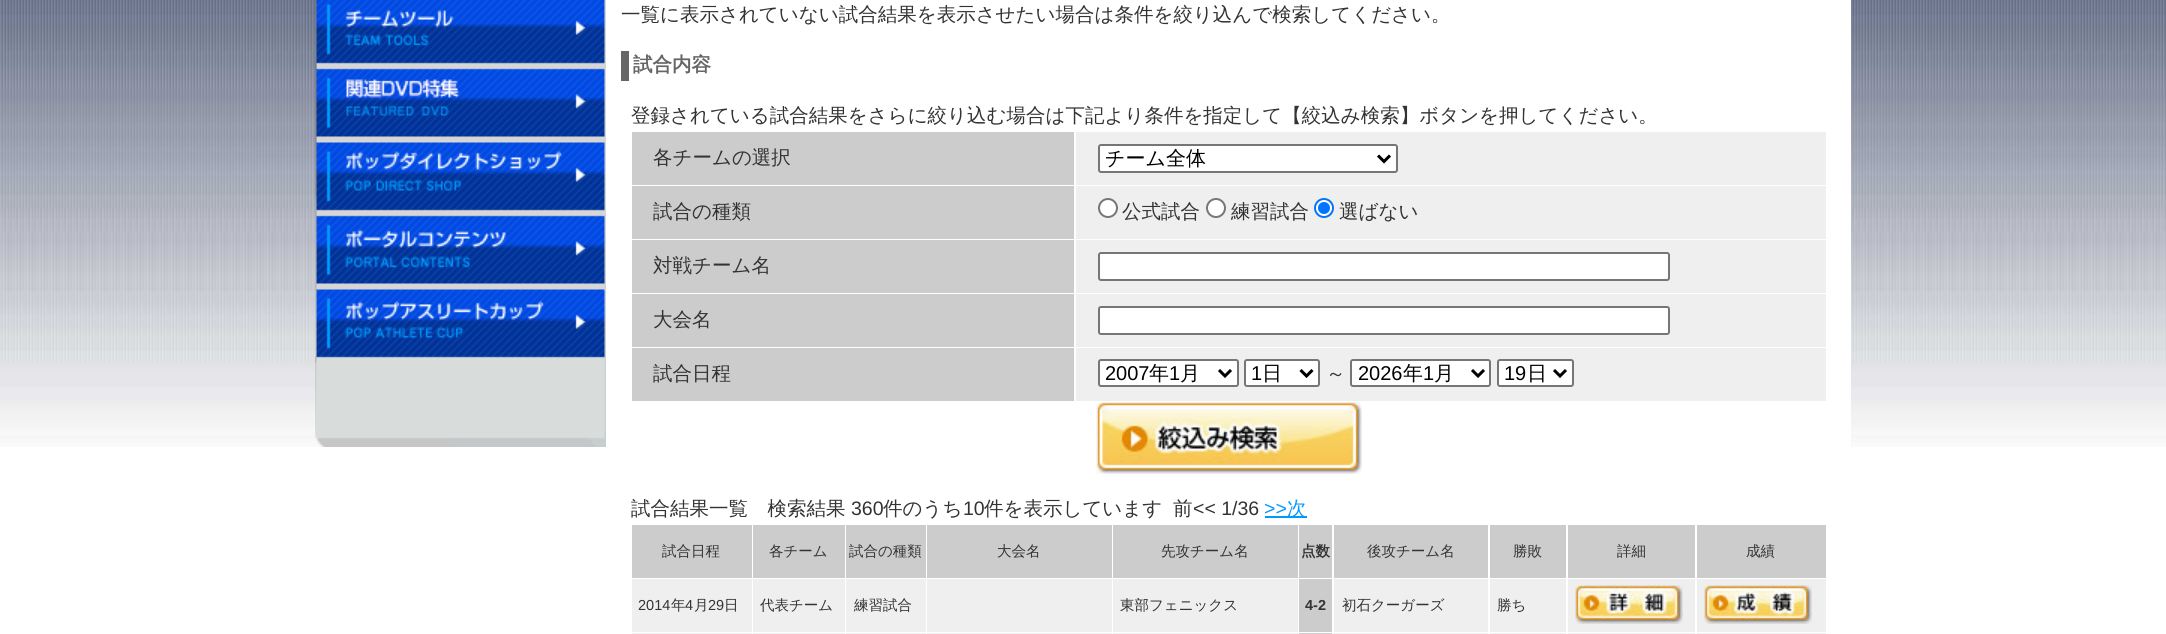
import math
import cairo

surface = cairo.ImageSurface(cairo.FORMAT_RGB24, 2166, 634)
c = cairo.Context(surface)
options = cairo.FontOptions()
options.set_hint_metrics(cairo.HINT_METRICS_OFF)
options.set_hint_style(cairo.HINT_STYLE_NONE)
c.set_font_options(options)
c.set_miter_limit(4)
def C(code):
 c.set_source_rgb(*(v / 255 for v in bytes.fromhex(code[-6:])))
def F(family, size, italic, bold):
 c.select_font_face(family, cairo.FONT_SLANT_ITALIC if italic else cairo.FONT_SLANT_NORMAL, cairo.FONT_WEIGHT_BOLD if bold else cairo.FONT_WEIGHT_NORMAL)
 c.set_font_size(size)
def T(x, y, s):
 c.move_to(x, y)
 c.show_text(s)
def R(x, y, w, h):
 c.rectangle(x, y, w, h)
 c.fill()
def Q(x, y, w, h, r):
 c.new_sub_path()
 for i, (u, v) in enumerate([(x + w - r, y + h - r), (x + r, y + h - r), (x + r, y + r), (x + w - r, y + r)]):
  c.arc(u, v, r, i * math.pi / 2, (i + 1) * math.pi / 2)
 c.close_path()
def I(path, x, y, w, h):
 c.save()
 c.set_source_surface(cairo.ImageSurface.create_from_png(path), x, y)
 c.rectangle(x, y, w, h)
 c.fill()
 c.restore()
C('ffffff')
c.paint()
I('1.png',0,0,2166,447)
I('2.png',315,0,291,447)
C('ffffff')
R(606,0,1245,447)
F('WenQuanYi Zen Hei Medium',19.5,0,0)
C('333333')
T(621,21,'一覧に表示されていない試合結果を表示させたい場合は条件を絞り込んで検索してください。')
C('666666')
R(621,51,8,30)
F('WenQuanYi Zen Hei',19.5,0,1)
T(633,71,'試合内容')
F('WenQuanYi Zen Hei Medium',19.5,0,0)
C('333333')
T(631,122,'登録されている試合結果をさらに絞り込む場合は下記より条件を指定して【絞込み検索】ボタンを押してください。')
C('cccccc')
R(632,132,442,53)
C('333333')
T(653,164,'各チームの選択')
C('efefef')
R(1076,132,750,53)
C('ffffff')
Q(1099,145,298,27,2)
c.fill_preserve()
C('767676')
c.stroke()
c.new_path()
c.move_to(1378,155.5)
c.line_to(1384,161.5)
c.line_to(1390,155.5)
C('000000')
c.set_line_width(3)
c.stroke()
F('WenQuanYi Zen Hei Medium',20,0,0)
T(1105,165,'チーム全体')
C('cccccc')
R(632,186,442,53)
F('WenQuanYi Zen Hei Medium',19.5,0,0)
C('333333')
T(653,218,'試合の種類')
C('efefef')
R(1076,186,750,53)
C('ffffff')
c.new_path()
c.arc(1108,208,9,0,2 * math.pi)
c.fill_preserve()
C('767676')
c.set_line_width(2)
c.stroke()
C('333333')
T(1122,218,'公式試合')
C('ffffff')
c.new_path()
c.arc(1216,208,9,0,2 * math.pi)
c.fill_preserve()
C('767676')
c.stroke()
C('333333')
T(1231,218,'練習試合')
C('ffffff')
c.new_path()
c.arc(1324,208,9,0,2 * math.pi)
c.fill_preserve()
C('0075ff')
c.stroke()
c.arc(1324,208,6,0,2 * math.pi)
c.fill()
C('333333')
T(1339,218,'選ばない')
C('cccccc')
R(632,240,442,53)
C('333333')
T(653,272,'対戦チーム名')
C('efefef')
R(1076,240,750,53)
C('ffffff')
Q(1099,253,570,27,2)
c.fill_preserve()
C('767676')
c.stroke()
C('cccccc')
R(632,294,442,53)
C('333333')
T(653,326,'大会名')
C('efefef')
R(1076,294,750,53)
C('ffffff')
Q(1099,307,570,27,2)
c.fill_preserve()
C('767676')
c.stroke()
C('cccccc')
R(632,348,442,53)
C('333333')
T(653,380,'試合日程')
C('efefef')
R(1076,348,750,53)
C('ffffff')
Q(1099,360,139,26,2)
c.fill_preserve()
C('767676')
c.stroke()
c.new_path()
c.move_to(1219,370)
c.line_to(1225,376)
c.line_to(1231,370)
C('000000')
c.set_line_width(3)
c.stroke()
F('Liberation Sans',20,0,0)
T(1105,380,'2007')
F('WenQuanYi Zen Hei Medium',20,0,0)
T(1149,380,'年')
F('Liberation Sans',20,0,0)
T(1169,380,'1')
F('WenQuanYi Zen Hei Medium',20,0,0)
T(1180,380,'月')
C('ffffff')
Q(1245,360,74,26,2)
c.fill_preserve()
C('767676')
c.set_line_width(2)
c.stroke()
c.new_path()
c.move_to(1300.5,370)
c.line_to(1306.5,376)
c.line_to(1312.5,370)
C('000000')
c.set_line_width(3)
c.stroke()
F('Liberation Sans',20,0,0)
T(1251,380,'1')
F('WenQuanYi Zen Hei Medium',20,0,0)
T(1262,380,'日')
F('WenQuanYi Zen Hei Medium',19.5,0,0)
C('333333')
T(1326,380,'～')
C('ffffff')
Q(1351,360,139,26,2)
c.fill_preserve()
C('767676')
c.set_line_width(2)
c.stroke()
c.new_path()
c.move_to(1472,370)
c.line_to(1478,376)
c.line_to(1484,370)
C('000000')
c.set_line_width(3)
c.stroke()
F('Liberation Sans',20,0,0)
T(1358,380,'2026')
F('WenQuanYi Zen Hei Medium',20,0,0)
T(1403,380,'年')
F('Liberation Sans',20,0,0)
T(1423,380,'1')
F('WenQuanYi Zen Hei Medium',20,0,0)
T(1434,380,'月')
C('ffffff')
Q(1498,360,75,26,2)
c.fill_preserve()
C('767676')
c.set_line_width(2)
c.stroke()
c.new_path()
c.move_to(1554,370)
c.line_to(1560,376)
c.line_to(1566,370)
C('000000')
c.set_line_width(3)
c.stroke()
F('Liberation Sans',20,0,0)
T(1504,380,'19')
F('WenQuanYi Zen Hei Medium',20,0,0)
T(1527,380,'日')
I('3.png',1096,402,266,72)
F('WenQuanYi Zen Hei Medium',19.5,0,0)
C('333333')
T(631,515,'試合結果一覧　検索結果')
F('Liberation Sans',19.5,0,0)
T(851,515,'360')
F('WenQuanYi Zen Hei Medium',19.5,0,0)
T(883,515,'件のうち')
F('Liberation Sans',19.5,0,0)
T(963,515,'10')
F('WenQuanYi Zen Hei Medium',19.5,0,0)
T(984,515,'件を表示しています')
T(1173,515,'前')
F('Liberation Sans',19.5,0,0)
T(1193,515,'<< 1/36')
C('0198ff')
T(1264,515,'>>')
R(1265,516,42,2)
F('WenQuanYi Zen Hei Medium',19.5,0,0)
T(1287,515,'次')
C('cccccc')
R(632,525,120,53)
F('WenQuanYi Zen Hei Medium',14.5,0,0)
C('333333')
T(662,556,'試合日程')
C('cccccc')
R(753,525,92,53)
C('333333')
T(769,556,'各チーム')
C('cccccc')
R(846,525,80,53)
C('333333')
T(849,556,'試合の種類')
C('cccccc')
R(927,525,185,53)
C('333333')
T(997,556,'大会名')
C('cccccc')
R(1113,525,185,53)
C('333333')
T(1161,556,'先攻チーム名')
C('cccccc')
R(1299,525,33,53)
F('WenQuanYi Zen Hei',14.5,0,1)
C('333333')
T(1301,556,'点数')
C('cccccc')
R(1334,525,154,53)
F('WenQuanYi Zen Hei Medium',14.5,0,0)
C('333333')
T(1367,556,'後攻チーム名')
C('cccccc')
R(1490,525,76,53)
C('333333')
T(1513,556,'勝敗')
C('cccccc')
R(1568,525,127,53)
C('333333')
T(1617,556,'詳細')
C('cccccc')
R(1697,525,129,53)
C('333333')
T(1746,556,'成績')
C('efefef')
R(632,579,120,53)
F('Liberation Sans',14.5,0,0)
C('333333')
T(638,610,'2014')
F('WenQuanYi Zen Hei Medium',14.5,0,0)
T(671,610,'年')
F('Liberation Sans',14.5,0,0)
T(685,610,'4')
F('WenQuanYi Zen Hei Medium',14.5,0,0)
T(694,610,'月')
F('Liberation Sans',14.5,0,0)
T(708,610,'29')
F('WenQuanYi Zen Hei Medium',14.5,0,0)
T(724,610,'日')
C('efefef')
R(753,579,92,53)
C('333333')
T(760,610,'代表チーム')
C('efefef')
R(846,579,80,53)
C('333333')
T(854,610,'練習試合')
C('efefef')
R(927,579,185,53)
R(1113,579,185,53)
C('333333')
T(1120,610,'東部フェニックス')
C('cccccc')
R(1299,579,33,53)
F('Liberation Sans',14.5,0,1)
C('333333')
T(1305,610,'4-2')
C('efefef')
R(1334,579,154,53)
F('WenQuanYi Zen Hei Medium',14.5,0,0)
C('333333')
T(1342,610,'初石クーガーズ')
C('efefef')
R(1490,579,76,53)
C('333333')
T(1497,610,'勝ち')
C('efefef')
R(1568,579,127,53)
I('4.png',1575,585,108,39)
R(1697,579,129,53)
I('5.png',1704,585,108,39)
R(632,633,121,1)
C('ffffff')
R(752,633,2,1)
C('efefef')
R(753,633,93,1)
C('ffffff')
R(845,633,2,1)
C('efefef')
R(846,633,81,1)
C('ffffff')
R(926,633,2,1)
C('efefef')
R(927,633,186,1)
C('ffffff')
R(1112,633,2,1)
C('efefef')
R(1113,633,186,1)
C('ffffff')
R(1298,633,2,1)
C('cccccc')
R(1299,633,35,1)
C('ffffff')
R(1332,633,2,1)
C('efefef')
R(1334,633,493,1)
C('ffffff')
R(1488,633,2,1)
R(1566,633,2,1)
R(1695,633,2,1)
R(1826,633,2,1)
surface.write_to_png('o.png')
